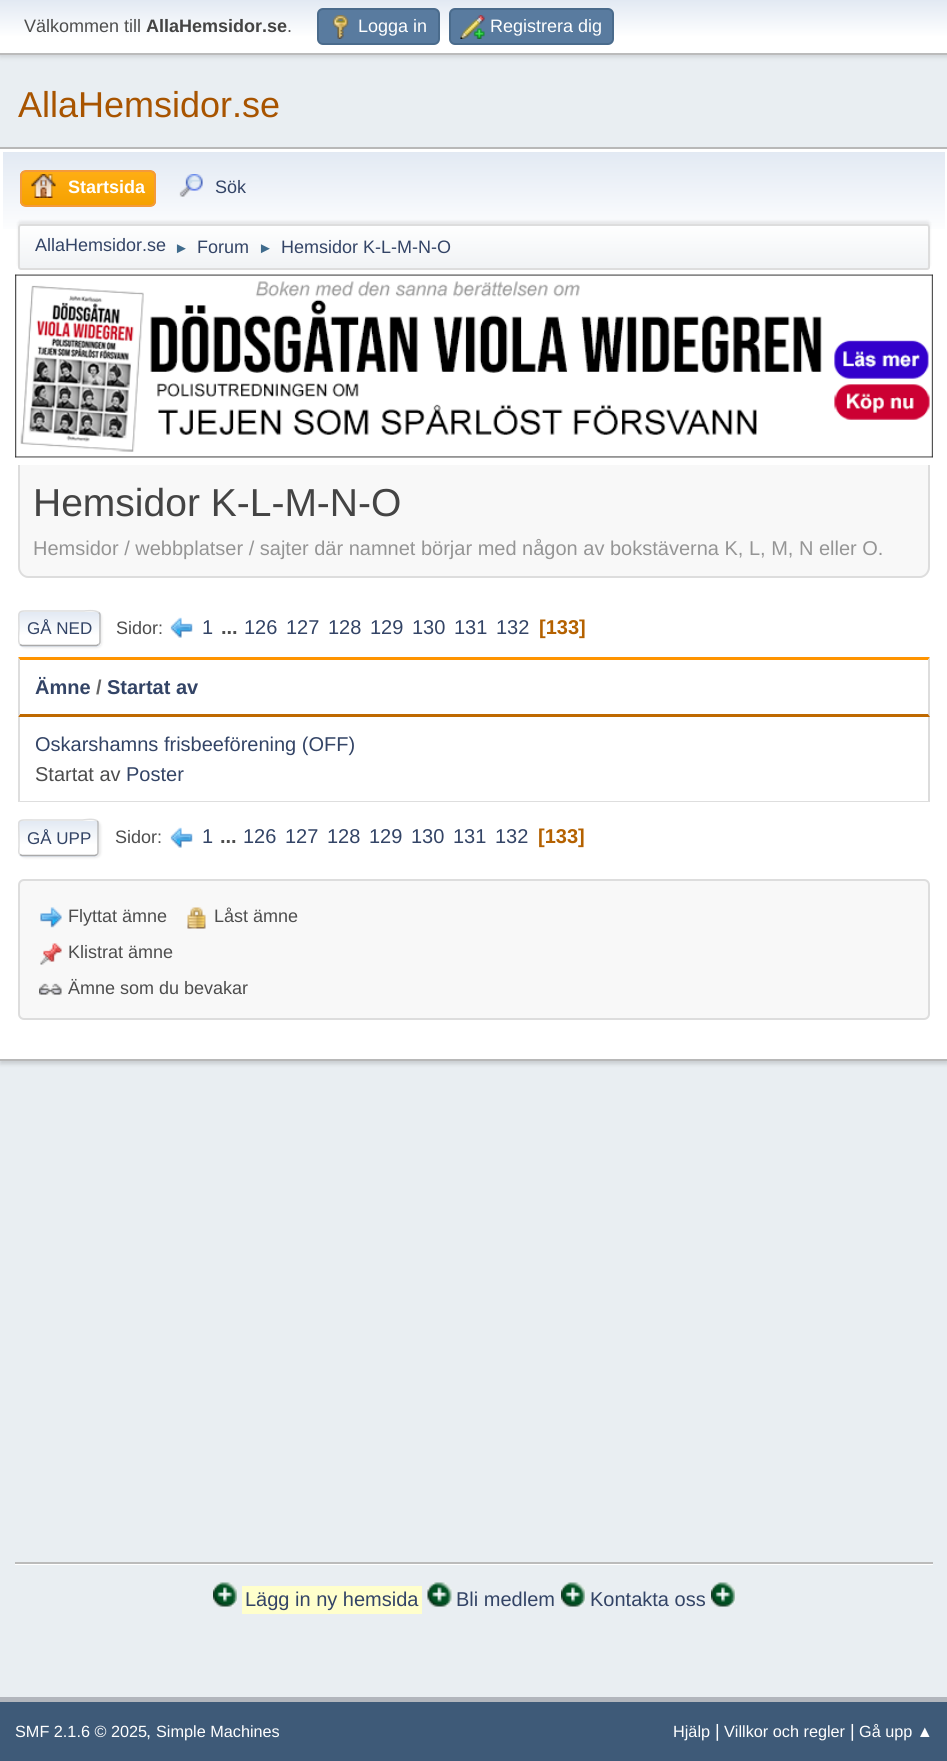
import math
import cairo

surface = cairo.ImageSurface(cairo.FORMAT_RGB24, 947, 1761)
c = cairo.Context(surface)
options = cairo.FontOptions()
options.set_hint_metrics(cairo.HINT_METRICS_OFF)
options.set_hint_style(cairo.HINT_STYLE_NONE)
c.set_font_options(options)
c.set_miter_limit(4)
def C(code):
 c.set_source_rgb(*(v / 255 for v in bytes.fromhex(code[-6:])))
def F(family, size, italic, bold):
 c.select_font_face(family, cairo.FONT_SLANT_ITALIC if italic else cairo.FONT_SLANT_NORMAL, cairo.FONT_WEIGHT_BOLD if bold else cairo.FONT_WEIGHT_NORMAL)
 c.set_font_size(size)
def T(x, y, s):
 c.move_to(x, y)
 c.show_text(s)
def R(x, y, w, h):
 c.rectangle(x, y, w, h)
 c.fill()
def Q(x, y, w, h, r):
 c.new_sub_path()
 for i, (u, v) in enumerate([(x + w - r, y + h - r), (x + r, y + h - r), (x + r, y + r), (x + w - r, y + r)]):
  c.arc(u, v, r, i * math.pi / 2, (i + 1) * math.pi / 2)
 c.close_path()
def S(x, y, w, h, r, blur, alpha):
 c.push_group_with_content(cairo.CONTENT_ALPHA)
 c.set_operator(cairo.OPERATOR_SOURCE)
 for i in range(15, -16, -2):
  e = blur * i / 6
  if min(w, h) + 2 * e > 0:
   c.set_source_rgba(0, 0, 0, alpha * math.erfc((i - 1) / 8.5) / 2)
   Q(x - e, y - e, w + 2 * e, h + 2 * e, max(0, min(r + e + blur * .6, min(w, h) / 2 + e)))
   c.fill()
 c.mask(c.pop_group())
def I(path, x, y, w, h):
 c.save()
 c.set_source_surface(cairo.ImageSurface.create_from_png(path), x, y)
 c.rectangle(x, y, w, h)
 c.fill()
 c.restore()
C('e9eef2')
c.paint()
C('000000')
S(0,2,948,54,0,3,.16)
gradient = cairo.LinearGradient(474,0,474,53)
gradient.add_color_stop_rgba(0,0.886,0.914,0.953,1)
gradient.add_color_stop_rgba(.7,1,1,1,1)
c.set_source(gradient)
R(0,0,947,53)
C('bbbbbb')
R(0,53,947,2)
F('Liberation Sans',18,0,0)
C('4d4d4d')
T(24,32,'Välkommen till')
F('Liberation Sans',18,0,1)
C('444444')
T(146,32,'AllaHemsidor.se')
F('Liberation Sans',18,0,0)
C('4d4d4d')
T(287,32,'.')
C('597b9f')
Q(318,9,121,35,5)
c.fill_preserve()
C('4a6b8c')
c.stroke()
I('1.png',332,15,17,24)
C('ffffff')
T(358,32,'Logga in')
C('597b9f')
Q(450,9,163,35,5)
c.fill_preserve()
C('4a6b8c')
c.stroke()
I('2.png',460,15,25,24)
C('ffffff')
T(490,32,'Registrera dig')
F('Liberation Sans',36,0,0)
C('a85400')
T(18,117,'AllaHemsidor.se')
C('000000')
S(0,150,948,914,0,2,.14)
C('ffffff')
R(0,149,947,910)
C('b8b8b8')
R(0,147,947,2)
R(0,1059,947,2)
gradient = cairo.LinearGradient(474,151,474,273)
gradient.add_color_stop_rgba(0,0.886,0.914,0.953,1)
gradient.add_color_stop_rgba(.7,1,1,1,1)
c.set_source(gradient)
R(3,152,942,77)
c.save()
Q(20,170,136,37,6)
c.clip()
gradient = cairo.LinearGradient(88,171,88,206)
gradient.add_color_stop_rgba(0,1,0.682,0.078,1)
gradient.add_color_stop_rgba(1,0.961,0.631,0,1)
c.set_source(gradient)
R(20,171,136,35)
c.restore()
Q(21,171,134,35,5)
C('f49a3a')
c.stroke()
I('3.png',31,174,25,24)
F('Liberation Sans',18,0,1)
C('ffffff')
T(68,193,'Startsida')
I('4.png',179,174,24,23)
F('Liberation Sans',18,0,0)
C('334466')
T(215,193,'Sök')
C('000000')
S(18,221,912,46,3,1.5,.08)
c.save()
Q(18,224,912,46,3)
c.clip()
gradient = cairo.LinearGradient(474,225,474,269)
gradient.add_color_stop_rgba(0,1,1,1,1)
gradient.add_color_stop_rgba(.95,0.945,0.953,0.961,1)
c.set_source(gradient)
R(18,225,912,44)
c.restore()
Q(19,225,910,44,2)
C('dddddd')
c.stroke()
C('334466')
T(35,251,'AllaHemsidor.se')
F('Liberation Sans',15,0,0)
C('3f6b8c')
T(174,253,'►')
F('Liberation Sans',18,0,0)
C('334466')
T(197,253,'Forum')
F('Liberation Sans',15,0,0)
C('3f6b8c')
T(258,253,'►')
F('Liberation Sans',18,0,0)
C('334466')
T(281,253,'Hemsidor K-L-M-N-O')
I('5.png',15,274,918,184)
C('f8f8f8')
c.new_path()
c.move_to(18,465)
c.line_to(930,465)
c.line_to(930,567)
c.curve_to(930,573,925,578,919,578)
c.line_to(29,578)
c.curve_to(23,578,18,573,18,567)
c.close_path()
c.fill()
C('dddddd')
c.set_fill_rule(cairo.FILL_RULE_EVEN_ODD)
c.new_path()
c.move_to(18,465)
c.line_to(930,465)
c.line_to(930,567)
c.curve_to(930,573,925,578,920,578)
c.line_to(28,578)
c.curve_to(23,578,18,573,18,567)
c.close_path()
c.move_to(20,465)
c.line_to(928,465)
c.line_to(928,567)
c.curve_to(928,572,924,576,920,576)
c.line_to(28,576)
c.curve_to(24,576,20,572,20,567)
c.close_path()
c.fill()
F('Liberation Sans',39,0,0)
C('444444')
T(33,516,'Hemsidor K-L-M-N-O')
F('Liberation Sans',20,0,0)
C('959595')
T(33,555,'Hemsidor / webbplatser / sajter där namnet börjar med någon av bokstäverna K, L, M, N eller O.')
C('dddddd')
S(20,612,82,36,5,1,.57)
C('ffffff')
Q(18,611,83,36,5)
c.fill()
c.save()
c.set_fill_rule(cairo.FILL_RULE_WINDING)
Q(18,611,83,36,5)
c.clip()
gradient = cairo.LinearGradient(59,612,59,645)
gradient.add_color_stop_rgba(0,0.886,0.914,0.953,1)
gradient.add_color_stop_rgba(.7,1,1,1,1)
c.set_source(gradient)
R(18,612,83,33)
gradient = cairo.LinearGradient(59,645,59,678)
gradient.add_color_stop_rgba(0,0.886,0.914,0.953,1)
gradient.add_color_stop_rgba(.7,1,1,1,1)
c.set_source(gradient)
R(18,645,83,2)
c.restore()
c.new_path()
c.move_to(98.5,612.5)
c.curve_to(99.5,613,100,614,100,615)
c.line_to(100,642)
c.curve_to(100,643,99.5,644,98.5,644.5)
C('bbbbbb')
c.set_line_width(1.5)
c.stroke()
c.new_path()
c.move_to(98.5,644.5)
c.line_to(96.5,645.5)
c.line_to(22,645.5)
c.line_to(20,644.5)
C('aaaaaa')
c.stroke()
c.save()
c.set_fill_rule(cairo.FILL_RULE_WINDING)
c.rectangle(18,600,912,57)
c.clip()
c.new_path()
c.move_to(20,644.5)
c.curve_to(17.5,642.5,19,631.5,19,628.5)
c.curve_to(19,609,15.5,611,35,611)
c.line_to(84,611)
c.curve_to(84,611,95.5,609.5,98.5,612.5)
C('dddddd')
c.stroke()
c.restore()
F('Liberation Sans',17,0,0)
C('334466')
T(27,634,'GÅ NED')
F('Liberation Sans',18,0,0)
C('4d4d4d')
T(116,634,'Sidor:')
I('6.png',170,617,23,21)
F('Liberation Sans',20,0,0)
C('334466')
T(202,634,'1')
F('Liberation Sans',20,0,1)
C('4d4d4d')
T(221,634,'...')
F('Liberation Sans',20,0,0)
C('334466')
T(244,634,'126')
T(286,634,'127')
T(328,634,'128')
T(370,634,'129')
T(412,634,'130')
T(454,634,'131')
T(496,634,'132')
F('Liberation Sans',20,0,1)
C('b46100')
T(539,634,'[133]')
C('ff9400')
c.set_fill_rule(cairo.FILL_RULE_WINDING)
c.new_path()
c.move_to(18,657)
c.line_to(930,657)
c.line_to(928,660)
c.line_to(20,660)
c.close_path()
c.fill()
C('dddddd')
c.new_path()
c.move_to(930,657)
c.line_to(930,717)
c.line_to(928,714)
c.line_to(928,660)
c.close_path()
c.fill()
C('bf6900')
c.new_path()
c.move_to(930,717)
c.line_to(18,717)
c.line_to(20,714)
c.line_to(928,714)
c.close_path()
c.fill()
C('dddddd')
c.new_path()
c.move_to(18,717)
c.line_to(18,657)
c.line_to(20,660)
c.line_to(20,714)
c.close_path()
c.fill()
C('334466')
T(35,694,'Ämne')
C('666666')
T(96,694,'/')
C('334466')
T(107,694,'Startat av')
C('dcdcdc')
c.new_path()
c.move_to(930,717)
c.line_to(930,802)
c.line_to(928,801)
c.line_to(928,717)
c.close_path()
c.fill()
c.set_source_rgba(0,0,0,0.13)
c.new_path()
c.move_to(930,802)
c.line_to(18,802)
c.line_to(20,801)
c.line_to(928,801)
c.close_path()
c.fill()
c.new_path()
c.move_to(18,802)
c.line_to(18,717)
c.line_to(20,717)
c.line_to(20,801)
c.close_path()
c.fill()
F('Liberation Sans',20,0,0)
C('334466')
T(35,751,'Oskarshamns frisbeeförening (OFF)')
C('4d4d4d')
T(35,781,'Startat av')
C('334466')
T(126,781,'Poster')
C('dddddd')
S(20,821,81,37,5,1,.57)
C('ffffff')
Q(18,819,81,38,5)
c.fill()
c.save()
Q(18,819,81,38,5)
c.clip()
gradient = cairo.LinearGradient(59,821,59,855)
gradient.add_color_stop_rgba(0,0.886,0.914,0.953,1)
gradient.add_color_stop_rgba(.7,1,1,1,1)
c.set_source(gradient)
R(18,821,81,34)
gradient = cairo.LinearGradient(59,855,59,890)
gradient.add_color_stop_rgba(0,0.886,0.914,0.953,1)
gradient.add_color_stop_rgba(.7,1,1,1,1)
c.set_source(gradient)
R(18,855,81,2)
c.restore()
c.new_path()
c.move_to(97,821)
c.curve_to(98,821.5,98,822.5,98,823.5)
c.line_to(98,852)
c.curve_to(98,853,98,854,97,854.5)
C('bbbbbb')
c.stroke()
c.new_path()
c.move_to(97,854.5)
c.line_to(95,855.5)
c.line_to(22,855.5)
c.line_to(20,854.5)
C('aaaaaa')
c.stroke()
c.new_path()
c.move_to(20,854.5)
c.curve_to(18,853,19,849.5,19,847)
c.line_to(19,838)
c.curve_to(19,818,15,820,34.5,820)
c.line_to(82.5,820)
c.curve_to(83,820,94.5,818,97,821)
C('dddddd')
c.stroke()
F('Liberation Sans',17,0,0)
C('334466')
T(27,844,'GÅ UPP')
F('Liberation Sans',18,0,0)
C('4d4d4d')
T(115,843,'Sidor:')
I('6.png',170,827,23,21)
F('Liberation Sans',20,0,0)
C('334466')
T(202,843,'1')
F('Liberation Sans',20,0,1)
C('4d4d4d')
T(220,843,'...')
F('Liberation Sans',20,0,0)
C('334466')
T(243,843,'126')
T(285,843,'127')
T(327,843,'128')
T(369,843,'129')
T(411,843,'130')
T(453,843,'131')
T(495,843,'132')
F('Liberation Sans',20,0,1)
C('b46100')
T(538,843,'[133]')
C('f8f8f8')
Q(19,880,910,139,5)
c.fill_preserve()
C('dddddd')
c.set_line_width(2)
c.stroke()
I('7.png',187,907,19,22)
F('Liberation Sans',18,0,0)
C('4d4d4d')
T(214,922,'Låst ämne')
I('8.png',40,943,22,22)
T(68,958,'Klistrat ämne')
I('9.png',39,983,23,12)
T(68,994,'Ämne som du bevakar')
I('10.png',40,907,22,21)
T(68,922,'Flyttat ämne')
C('ffffff')
R(15,1564,918,1)
C('bbbbbb')
R(15,1562,918,2)
I('11.png',213,1582,24,25)
C('ffffcc')
R(242,1586,180,28)
F('Liberation Sans',20,0,0)
C('334466')
T(245,1606,'Lägg in ny hemsida')
I('12.png',427,1582,25,25)
T(456,1606,'Bli medlem')
I('13.png',561,1582,24,25)
T(590,1606,'Kontakta oss')
I('13.png',711,1582,24,25)
C('3e5a78')
R(0,1702,947,59)
C('b2b6bd')
R(0,1697,947,5)
F('Liberation Sans',16.25,0,0)
C('ffffff')
T(15,1737,'SMF 2.1.6 © 2025')
F('Liberation Sans',18,0,0)
T(146,1737,',')
F('Liberation Sans',16.25,0,0)
T(156,1737,'Simple Machines')
T(673,1737,'Hjälp')
F('Liberation Sans',18,0,0)
T(715,1737,'|')
F('Liberation Sans',16.25,0,0)
T(724,1737,'Villkor och regler')
F('Liberation Sans',18,0,0)
T(850,1737,'|')
F('Liberation Sans',16.25,0,0)
T(859,1737,'Gå upp ▲')
surface.write_to_png('o.png')
